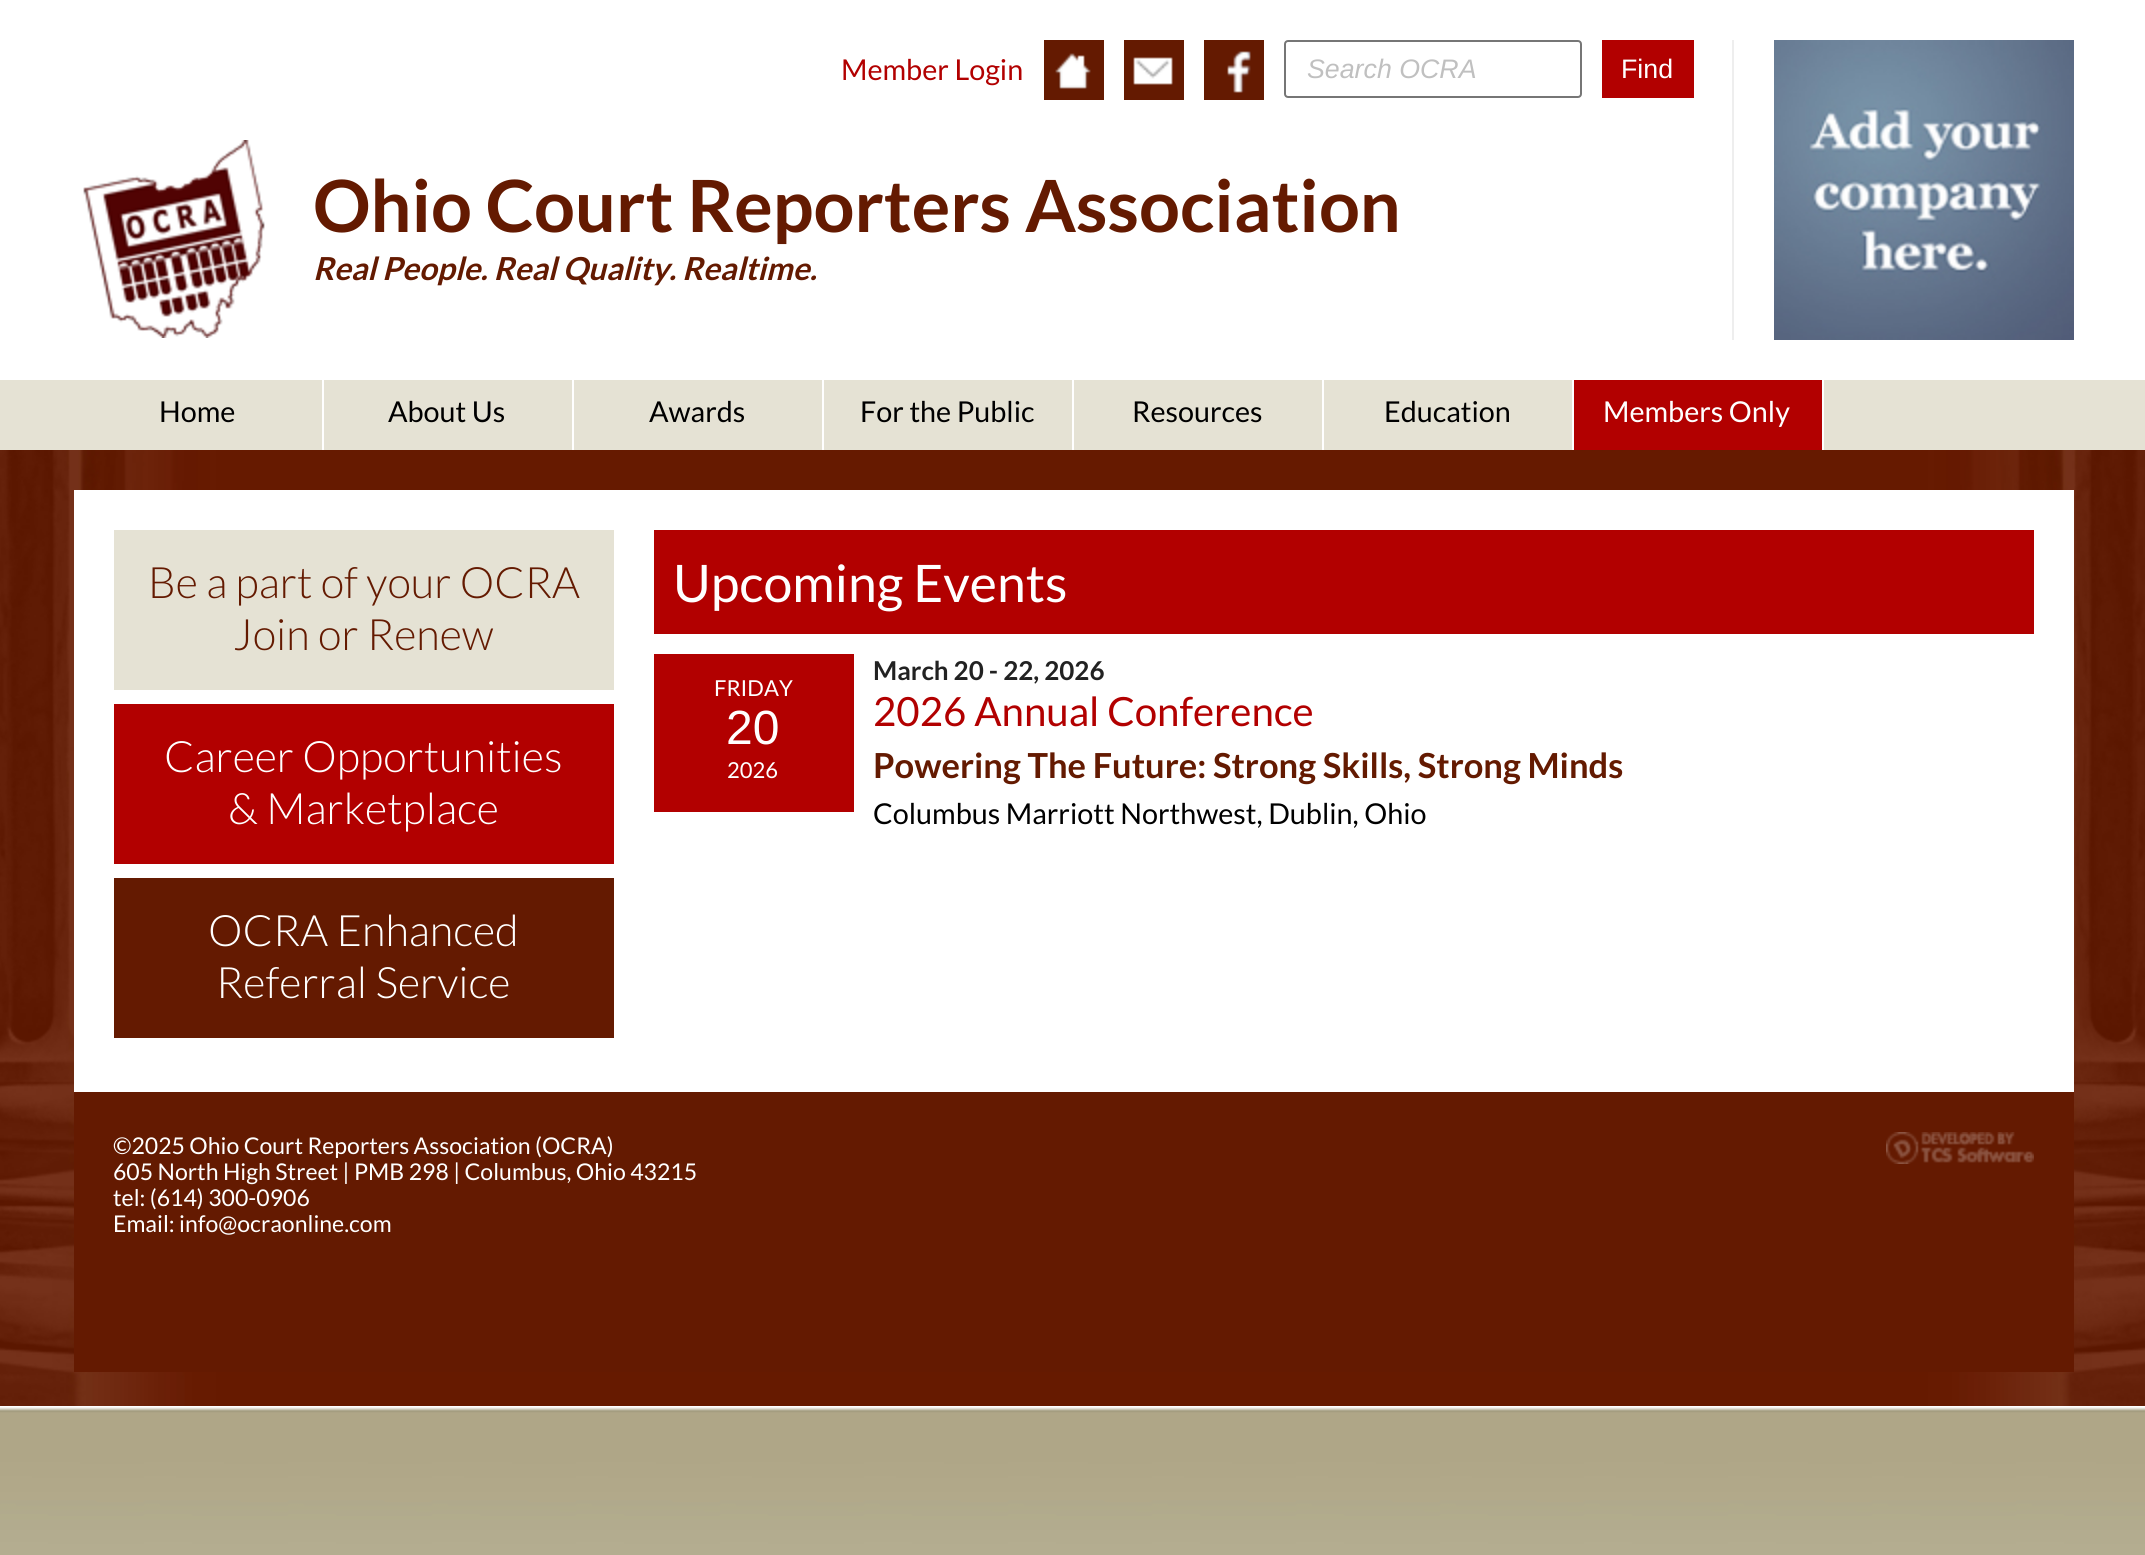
import math
import cairo

surface = cairo.ImageSurface(cairo.FORMAT_RGB24, 2145, 1555)
c = cairo.Context(surface)
options = cairo.FontOptions()
options.set_hint_metrics(cairo.HINT_METRICS_OFF)
options.set_hint_style(cairo.HINT_STYLE_NONE)
c.set_font_options(options)
c.set_miter_limit(4)
def C(code):
 c.set_source_rgb(*(v / 255 for v in bytes.fromhex(code[-6:])))
def F(family, size, italic, bold):
 c.select_font_face(family, cairo.FONT_SLANT_ITALIC if italic else cairo.FONT_SLANT_NORMAL, cairo.FONT_WEIGHT_BOLD if bold else cairo.FONT_WEIGHT_NORMAL)
 c.set_font_size(size)
def T(x, y, s):
 c.move_to(x, y)
 c.show_text(s)
def R(x, y, w, h):
 c.rectangle(x, y, w, h)
 c.fill()
def Q(x, y, w, h, r):
 c.new_sub_path()
 for i, (u, v) in enumerate([(x + w - r, y + h - r), (x + r, y + h - r), (x + r, y + r), (x + w - r, y + r)]):
  c.arc(u, v, r, i * math.pi / 2, (i + 1) * math.pi / 2)
 c.close_path()
def I(path, x, y, w, h):
 c.save()
 c.set_source_surface(cairo.ImageSurface.create_from_png(path), x, y)
 c.rectangle(x, y, w, h)
 c.fill()
 c.restore()
C('ffffff')
c.paint()
F('Lato',28.75,0,0)
C('b20000')
T(841,80,'Member Login')
C('641a01')
R(1044,40,60,60)
I('1.png',1055,53,36,36)
R(1124,40,60,60)
I('2.png',1133,57,40,28)
R(1204,40,60,60)
I('3.png',1227,51,24,42)
Q(1285,41,296,56,3)
C('767676')
c.stroke()
F('Liberation Sans',26.75,1,0)
C('c0c0c0')
T(1307,78,'Search OCRA')
C('b20000')
R(1602,40,92,58)
F('Liberation Sans',26.75,0,0)
C('ffffff')
T(1621,78,'Find')
C('eeeeee')
R(1732,40,2,300)
I('4.png',1774,40,300,300)
I('5.png',83,140,182,198)
F('Lato',72,0,1)
C('641a01')
T(313,232,'Ohio Court Reporters Association')
F('Lato',31.7,1,1)
T(313,280,'Real People. Real Quality. Realtime.')
C('e5e2d4')
R(0,380,2145,70)
C('ffffff')
R(322,380,2,70)
F('Lato',28.75,0,0)
C('000000')
T(159,422,'Home')
C('ffffff')
R(572,380,2,70)
C('000000')
T(388,422,'About Us')
C('ffffff')
R(822,380,2,70)
C('000000')
T(649,422,'Awards')
C('ffffff')
R(1072,380,2,70)
C('000000')
T(860,422,'For the Public')
C('ffffff')
R(1322,380,2,70)
C('000000')
T(1132,422,'Resources')
C('ffffff')
R(1572,380,2,70)
C('000000')
T(1384,422,'Education')
C('b20000')
R(1574,380,248,70)
C('ffffff')
R(1822,380,2,70)
T(1603,422,'Members Only')
I('6.png',0,450,2145,956)
R(74,490,2000,602)
C('e5e2d4')
R(114,530,500,160)
F('Lato Light',43.25,0,0)
C('641a01')
T(148,598,'Be a part of your OCRA')
T(233,650,'Join or Renew')
C('b20000')
R(114,704,500,160)
C('ffffff')
T(164,772,'Career Opportunities')
T(228,824,'& Marketplace')
C('641a01')
R(114,878,500,160)
C('ffffff')
T(208,946,'OCRA Enhanced')
T(216,998,'Referral Service')
C('b20000')
R(654,530,1380,104)
F('Lato',51.75,0,0)
C('ffffff')
T(673,602,'Upcoming Events')
F('Lato',26,0,1)
C('222222')
T(873,680,'March 20 - 22, 2026')
C('b20000')
R(654,654,200,158)
F('Lato',22,0,0)
C('ffffff')
T(714,696,'FRIDAY')
F('Liberation Sans',48,0,0)
T(726,744,'20')
F('Lato',22,0,0)
T(727,778,'2026')
F('Lato',40.25,0,0)
C('b20000')
T(873,726,'2026 Annual Conference')
F('Lato',34.5,0,1)
C('641a01')
T(873,778,'Powering The Future:')
T(1213,778,'Strong Skills, Strong Minds')
F('Lato',28.75,0,0)
C('000000')
T(873,824,'Columbus Marriott Northwest, Dublin, Ohio')
C('641a01')
R(74,1092,2000,280)
F('Lato',23.05,0,0)
C('ffffff')
T(113,1154,'©2025 Ohio Court Reporters Association (OCRA)')
T(113,1180,'605 North High Street | PMB 298 | Columbus, Ohio 43215')
T(113,1206,'tel: (614) 300-0906')
T(113,1232,'Email: info@ocraonline.com')
I('7.png',1886,1132,148,32)
I('8.png',0,1407,2145,148)
surface.write_to_png('o.png')
